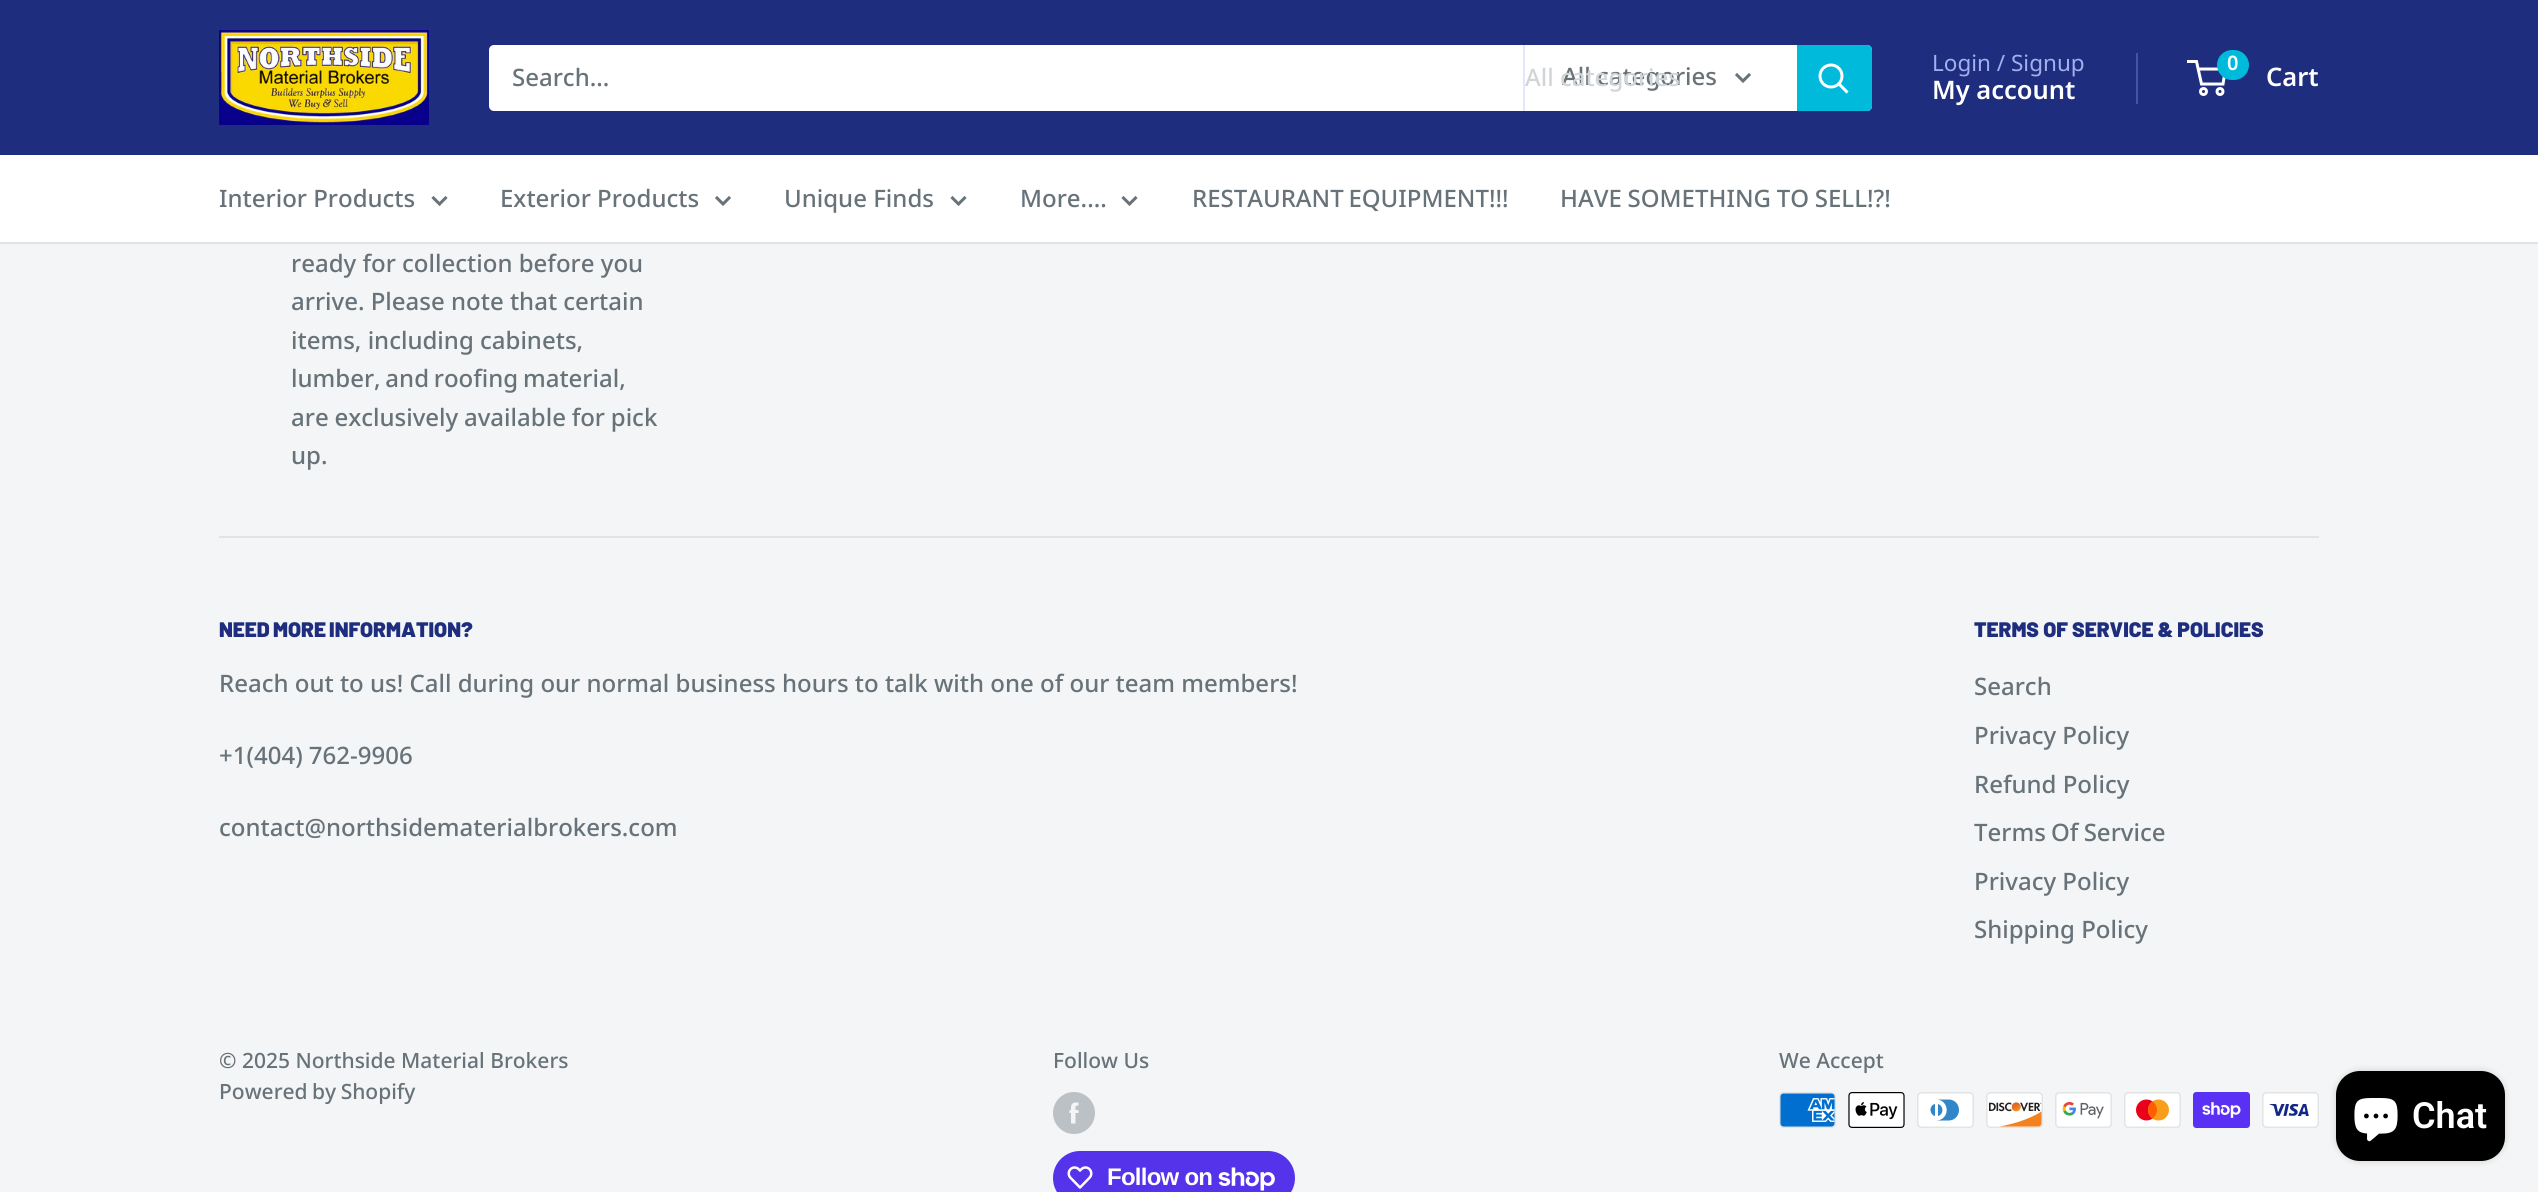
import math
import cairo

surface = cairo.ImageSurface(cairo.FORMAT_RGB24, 2538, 1192)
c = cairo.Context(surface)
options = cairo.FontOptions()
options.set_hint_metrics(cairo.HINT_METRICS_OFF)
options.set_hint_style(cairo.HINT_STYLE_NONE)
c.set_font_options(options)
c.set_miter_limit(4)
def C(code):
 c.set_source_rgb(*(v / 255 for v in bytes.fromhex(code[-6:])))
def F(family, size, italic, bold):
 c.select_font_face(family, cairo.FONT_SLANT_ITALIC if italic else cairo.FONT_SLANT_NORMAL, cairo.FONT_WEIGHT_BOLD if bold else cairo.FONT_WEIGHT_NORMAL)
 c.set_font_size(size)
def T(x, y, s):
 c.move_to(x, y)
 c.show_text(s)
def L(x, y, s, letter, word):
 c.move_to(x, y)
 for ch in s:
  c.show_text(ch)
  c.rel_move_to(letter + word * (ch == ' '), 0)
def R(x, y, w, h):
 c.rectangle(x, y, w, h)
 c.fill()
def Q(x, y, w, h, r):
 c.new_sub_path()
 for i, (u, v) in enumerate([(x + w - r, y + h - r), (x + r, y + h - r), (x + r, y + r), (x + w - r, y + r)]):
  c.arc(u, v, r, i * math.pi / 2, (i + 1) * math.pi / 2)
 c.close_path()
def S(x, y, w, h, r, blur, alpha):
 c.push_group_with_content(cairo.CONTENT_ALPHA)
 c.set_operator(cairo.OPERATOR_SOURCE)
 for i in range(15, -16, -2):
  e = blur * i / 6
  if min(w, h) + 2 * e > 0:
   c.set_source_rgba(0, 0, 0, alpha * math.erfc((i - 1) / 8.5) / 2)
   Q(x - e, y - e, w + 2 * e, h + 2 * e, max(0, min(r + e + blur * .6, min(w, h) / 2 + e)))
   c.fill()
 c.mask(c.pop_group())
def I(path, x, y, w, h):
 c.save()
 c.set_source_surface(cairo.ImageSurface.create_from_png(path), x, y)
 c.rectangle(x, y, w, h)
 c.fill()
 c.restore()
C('f3f5f6')
c.paint()
C('1e2d7d')
R(0,0,2538,155)
I('1.png',219,30,210,95)
C('ffffff')
Q(489,45,1383,66,5)
c.fill()
F('Noto Sans Medium',24,0,0)
C('677279')
T(512,86,'Search...')
C('e3e7fa')
R(1523,45,2,66)
C('677279')
T(1562,85,'All categories')
c.new_path()
c.move_to(1749,75)
c.line_to(1743,81)
c.line_to(1737,75)
c.set_line_width(3)
c.set_line_cap(cairo.LINE_CAP_SQUARE)
c.stroke()
C('d2d5d7')
T(1525,86,'All categories')
C('00badb')
c.new_path()
c.move_to(1797,45)
c.line_to(1867,45)
c.curve_to(1870,45,1872,47,1872,50)
c.line_to(1872,106)
c.curve_to(1872,109,1870,111,1867,111)
c.line_to(1797,111)
c.close_path()
c.fill()
c.new_path()
c.move_to(1846.5,91.5)
c.line_to(1839,84)
C('ffffff')
c.stroke()
c.arc(1831,76,11,0,2 * math.pi)
c.set_line_cap(cairo.LINE_CAP_BUTT)
c.stroke()
F('Noto Sans',22.5,0,0)
C('a3afef')
T(1932,71,'Login / Signup')
C('46549f')
R(2136,53,2,51)
F('Noto Sans SemiBold',25.5,0,0)
C('ffffff')
T(1932,99,'My account')
c.new_path()
c.arc(2203.5,91.5,3,0,2 * math.pi)
c.stroke()
c.arc(2220,91.5,3,0,2 * math.pi)
c.stroke()
c.new_path()
c.move_to(2198,69)
c.line_to(2225.5,69)
c.line_to(2223,84)
c.line_to(2201.5,84)
c.line_to(2196.5,61.5)
c.line_to(2187,61.5)
c.stroke()
C('00badb')
Q(2217,50,32,30,15)
c.fill()
F('Noto Sans SemiBold',20,0,0)
C('ffffff')
T(2227,70,'0')
F('Noto Sans SemiBold',25.5,0,0)
T(2266,86,'Cart')
R(0,155,2538,87)
C('e1e3e4')
R(0,242,2538,2)
F('Noto Sans Medium',24,0,0)
C('677279')
T(219,207,'Interior Products')
c.new_path()
c.move_to(445.5,198)
c.line_to(439.5,204)
c.line_to(433.5,198)
c.set_line_cap(cairo.LINE_CAP_SQUARE)
c.stroke()
T(500,207,'Exterior Products')
c.new_path()
c.move_to(729,198)
c.line_to(723,204)
c.line_to(717,198)
c.stroke()
T(784,207,'Unique Finds')
c.new_path()
c.move_to(964.5,198)
c.line_to(958.5,204)
c.line_to(952.5,198)
c.stroke()
T(1020,207,'More....')
c.new_path()
c.move_to(1135.5,198)
c.line_to(1129.5,204)
c.line_to(1123.5,198)
c.stroke()
L(1192,207,'RESTAURANT EQUIPMENT!!!',0,-1.5)
L(1560,207,'HAVE SOMETHING TO SELL!?!',0,-.5)
T(291,272,'ready for collection before you')
T(291,310,'arrive. Please note that certain')
T(291,349,'items, including cabinets,')
L(291,387,'lumber, and roofing material,',0,-1.5)
L(291,426,'are exclusively available for pick',0,-.5)
T(291,464,'up.')
C('e1e3e4')
R(219,536,2100,2)
F('Barlow Black',21,0,0)
C('1e2d7d')
L(219,637,'NEED MORE INFORMATION?',0,-1)
F('Noto Sans Medium',24,0,0)
C('677279')
T(219,692,'Reach out to us! Call during our normal business hours to talk with one of our team members!')
T(219,764,'+1(404) 762-9906')
T(219,836,'contact@northsidematerialbrokers.com')
F('Barlow Black',21,0,0)
C('1e2d7d')
T(1974,637,'TERMS OF SERVICE & POLICIES')
F('Noto Sans Medium',24,0,0)
C('677279')
T(1974,695,'Search')
T(1974,744,'Privacy Policy')
T(1974,793,'Refund Policy')
L(1974,841,'Terms Of Service',0,-1)
T(1974,890,'Privacy Policy')
T(1974,938,'Shipping Policy')
F('Noto Sans Medium',21,0,0)
T(219,1068,'© 2025 Northside Material Brokers')
L(219,1099,'Powered by Shopify',0,-1)
T(1053,1068,'Follow Us')
I('2.png',1053,1092,42,42)
C('5433eb')
Q(1053,1151,242,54,27)
c.fill()
I('3.png',1067,1166,26,23)
F('Liberation Sans',24,0,1)
C('ffffff')
L(1107,1185,'Follow on',-.75,0)
I('4.png',1218,1167,57,24)
F('Noto Sans Medium',21,0,0)
C('677279')
T(1779,1068,'We Accept')
I('5.png',1779,1092,57,36)
I('6.png',1848,1092,57,36)
I('7.png',1917,1092,57,36)
I('8.png',1986,1092,57,36)
I('9.png',2055,1092,57,36)
I('10.png',2124,1092,57,36)
I('11.png',2193,1092,57,36)
I('12.png',2262,1092,57,36)
C('000000')
S(2336,1071,169,90,24,4,.15)
C('000000')
Q(2336,1071,169,90,24)
c.fill()
I('13.png',2354,1098,44,44)
F('Roboto SemiBold',36,0,0)
C('ffffff')
T(2412,1128,'Chat')
surface.write_to_png('o.png')
